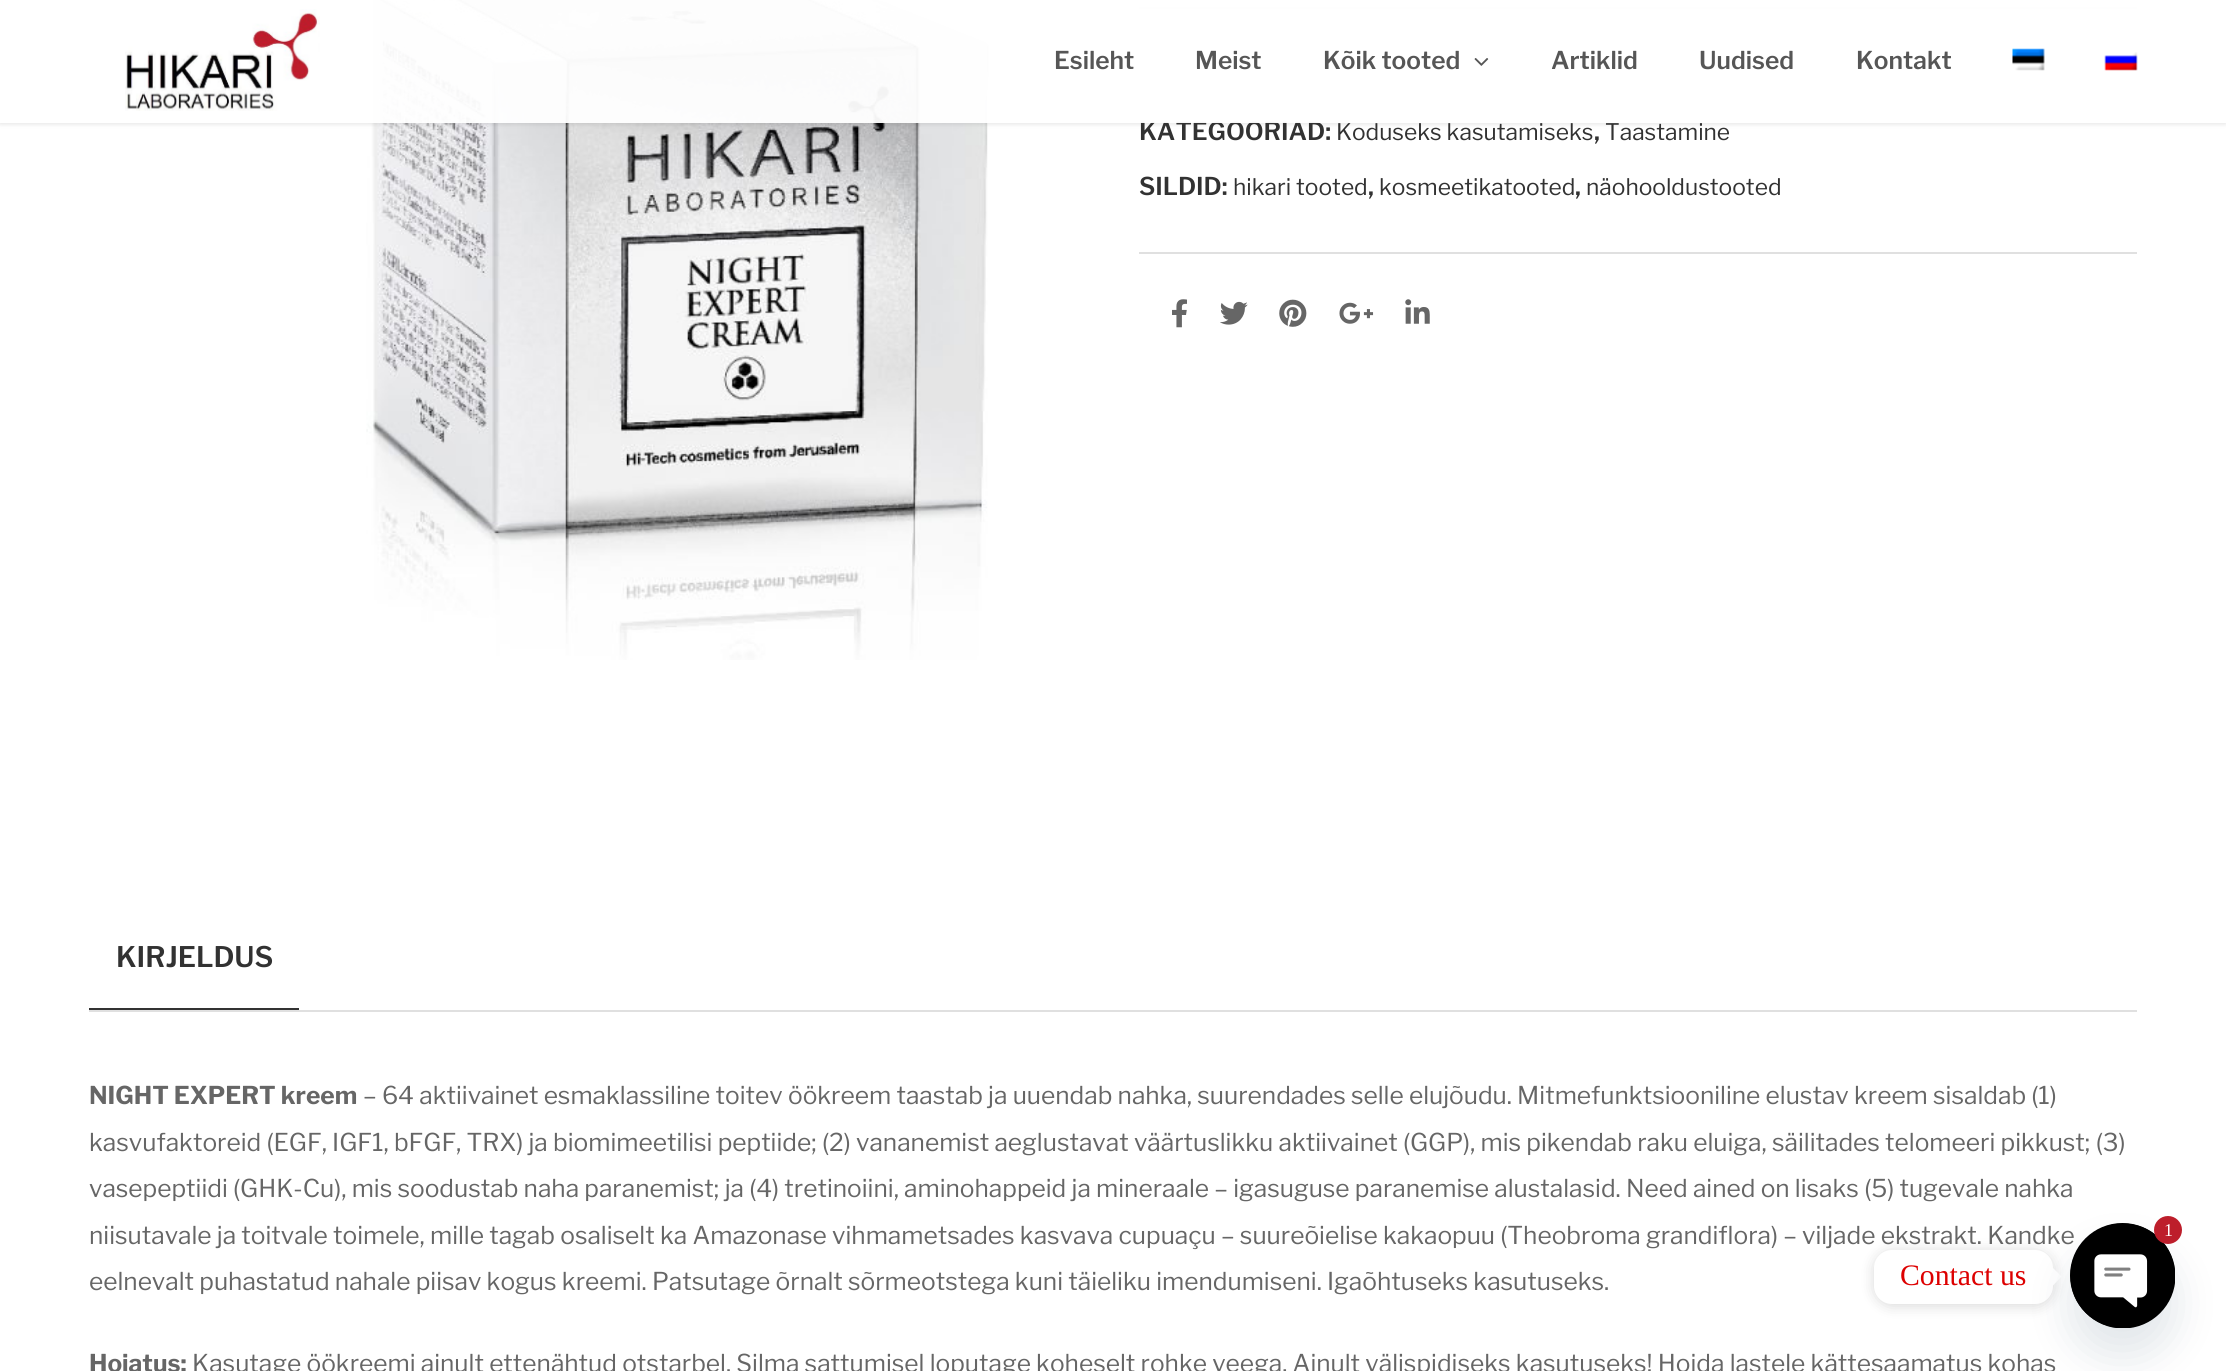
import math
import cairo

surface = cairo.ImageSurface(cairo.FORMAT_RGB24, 2226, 1371)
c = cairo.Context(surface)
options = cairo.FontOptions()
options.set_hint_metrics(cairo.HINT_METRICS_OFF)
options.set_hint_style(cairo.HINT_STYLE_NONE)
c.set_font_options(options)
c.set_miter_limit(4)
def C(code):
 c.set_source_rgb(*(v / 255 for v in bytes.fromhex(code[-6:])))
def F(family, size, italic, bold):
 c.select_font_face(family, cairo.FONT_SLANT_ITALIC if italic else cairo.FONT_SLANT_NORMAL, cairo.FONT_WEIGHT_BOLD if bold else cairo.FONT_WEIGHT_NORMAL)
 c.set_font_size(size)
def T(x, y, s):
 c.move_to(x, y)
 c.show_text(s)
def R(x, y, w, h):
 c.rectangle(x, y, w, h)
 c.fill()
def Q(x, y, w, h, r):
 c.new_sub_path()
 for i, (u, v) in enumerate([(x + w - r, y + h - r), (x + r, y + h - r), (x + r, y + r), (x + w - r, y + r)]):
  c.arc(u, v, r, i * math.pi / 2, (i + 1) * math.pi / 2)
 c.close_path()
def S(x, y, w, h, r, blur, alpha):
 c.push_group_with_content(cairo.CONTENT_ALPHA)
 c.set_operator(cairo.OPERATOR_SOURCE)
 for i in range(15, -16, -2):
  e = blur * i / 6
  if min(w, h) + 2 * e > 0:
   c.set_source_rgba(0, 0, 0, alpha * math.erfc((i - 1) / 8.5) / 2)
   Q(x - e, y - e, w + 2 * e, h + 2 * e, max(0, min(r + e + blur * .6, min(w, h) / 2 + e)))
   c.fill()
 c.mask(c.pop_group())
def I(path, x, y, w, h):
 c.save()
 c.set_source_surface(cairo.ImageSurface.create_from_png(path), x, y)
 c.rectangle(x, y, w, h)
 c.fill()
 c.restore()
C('ffffff')
c.paint()
I('5.png',366,0,628,660)
C('e0e0e0')
R(1139,7,998,2)
c.save()
c.set_fill_rule(cairo.FILL_RULE_EVEN_ODD)
c.new_path()
c.move_to(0,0)
c.line_to(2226,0)
c.line_to(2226,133)
c.line_to(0,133)
c.close_path()
c.move_to(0,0)
c.line_to(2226,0)
c.line_to(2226,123)
c.line_to(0,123)
c.close_path()
c.clip()
C('000000')
S(0,2,2226,122,0,2.5,.11)
c.restore()
F('Libre Franklin SemiBold',24.5,0,0)
C('323232')
T(1139,140,'KATEGOORIAD:')
c.set_source_rgba(1,1,1,0.95)
R(0,0,2226,123)
I('1.png',125,9,195,102)
C('565656')
T(1054,69,'Esileht')
T(1195,69,'Meist')
T(1323,69,'Kõik tooted')
I('2.png',1474,58,15,8)
T(1551,69,'Artiklid')
T(1699,69,'Uudised')
T(1856,69,'Kontakt')
I('3.png',2012,48,33,23)
I('4.png',2104,52,34,19)
F('Libre Franklin',22.75,0,0)
C('323232')
T(1336,140,'Koduseks kasutamiseks')
F('Libre Franklin SemiBold',24.5,0,0)
T(1594,140,',')
F('Libre Franklin',22.75,0,0)
T(1605,140,'Taastamine')
F('Libre Franklin SemiBold',24.5,0,0)
T(1139,195,'SILDID:')
F('Libre Franklin',22.75,0,0)
T(1233,195,'hikari tooted')
F('Libre Franklin SemiBold',24.5,0,0)
T(1368,195,',')
F('Libre Franklin',22.75,0,0)
T(1379,195,'kosmeetikatooted')
F('Libre Franklin SemiBold',24.5,0,0)
T(1575,195,',')
F('Libre Franklin',22.75,0,0)
T(1586,195,'näohooldustooted')
C('e0e0e0')
R(1139,252,998,2)
I('6.png',1172,299,15,29)
I('7.png',1220,301,28,24)
I('8.png',1279,299,28,28)
I('9.png',1339,302,35,22)
I('10.png',1405,299,25,25)
R(89,1010,2048,2)
F('Libre Franklin SemiBold',28.25,0,0)
C('323232')
T(116,967,'KIRJELDUS')
R(89,1008,210,2)
F('Libre Franklin',24.5,0,1)
C('666666')
T(89,1104,'NIGHT EXPERT kreem')
F('Libre Franklin',24.5,0,0)
T(363,1104,'– 64 aktiivainet esmaklassiline toitev öökreem taastab ja uuendab nahka, suurendades selle elujõudu. Mitmefunktsiooniline elustav kreem sisaldab (1)')
T(89,1151,'kasvufaktoreid (EGF, IGF1, bFGF, TRX) ja biomimeetilisi peptiide; (2) vananemist aeglustavat väärtuslikku aktiivainet (GGP), mis pikendab raku eluiga, säilitades telomeeri pikkust; (3)')
T(89,1197,'vasepeptiidi (GHK-Cu), mis soodustab naha paranemist; ja (4) tretinoiini, aminohappeid ja mineraale – igasuguse paranemise alustalasid. Need ained on lisaks (5) tugevale nahka')
T(89,1244,'niisutavale ja toitvale toimele, mille tagab osaliselt ka Amazonase vihmametsades kasvava cupuaçu – suureõielise kakaopuu (Theobroma grandiflora) – viljade ekstrakt. Kandke')
T(89,1290,'eelnevalt puhastatud nahale piisav kogus kreemi. Patsutage õrnalt sõrmeotstega kuni täieliku imendumiseni. Igaõhtuseks kasutuseks.')
F('Libre Franklin',24.5,0,1)
T(89,1372,'Hoiatus:')
F('Libre Franklin',24.5,0,0)
T(192,1372,'Kasutage öökreemi ainult ettenähtud otstarbel. Silma sattumisel loputage koheselt rohke veega. Ainult välispidiseks kasutuseks! Hoida lastele kättesaamatus kohas')
C('000000')
S(1874,1251,179,55,18,7,.15)
C('ffffff')
Q(1874,1250,179,54,18)
c.fill()
c.new_path()
c.move_to(2053,1285.5)
c.line_to(2053,1268)
c.line_to(2061.5,1276.5)
c.close_path()
c.fill()
C('49687e')
S(2070,1251,105,105,52.5,21,.16)
C('000000')
c.arc(2122.5,1275.5,52.5,0,2 * math.pi)
c.fill()
I('11.png',2070,1223,105,105)
C('bd1e2b')
c.arc(2168,1230,14,0,2 * math.pi)
c.fill()
F('Liberation Serif',18,0,0)
C('ffffff')
T(2164,1236,'1')
F('Liberation Serif',29.75,0,0)
C('dd0000')
T(1900,1285,'Contact us')
surface.write_to_png('o.png')
